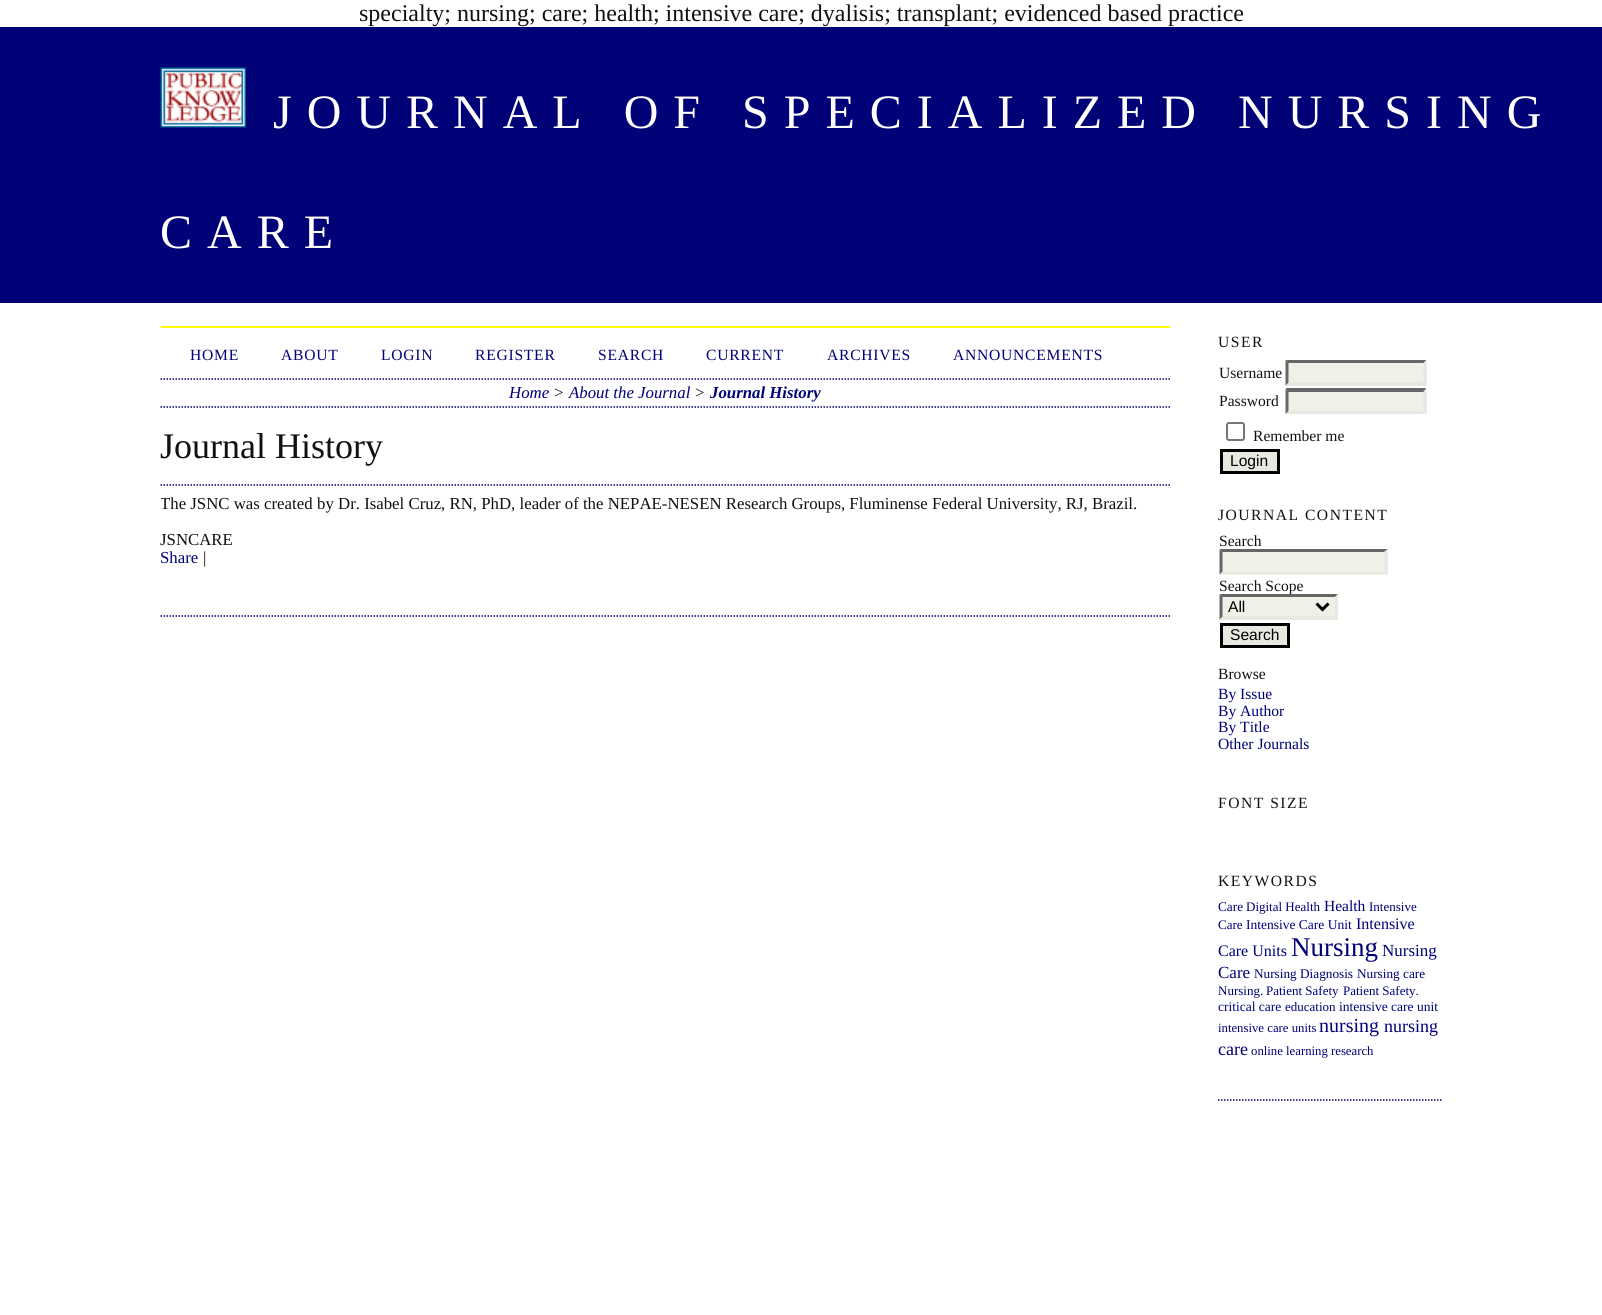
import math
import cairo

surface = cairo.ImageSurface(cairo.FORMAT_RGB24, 1602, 1315)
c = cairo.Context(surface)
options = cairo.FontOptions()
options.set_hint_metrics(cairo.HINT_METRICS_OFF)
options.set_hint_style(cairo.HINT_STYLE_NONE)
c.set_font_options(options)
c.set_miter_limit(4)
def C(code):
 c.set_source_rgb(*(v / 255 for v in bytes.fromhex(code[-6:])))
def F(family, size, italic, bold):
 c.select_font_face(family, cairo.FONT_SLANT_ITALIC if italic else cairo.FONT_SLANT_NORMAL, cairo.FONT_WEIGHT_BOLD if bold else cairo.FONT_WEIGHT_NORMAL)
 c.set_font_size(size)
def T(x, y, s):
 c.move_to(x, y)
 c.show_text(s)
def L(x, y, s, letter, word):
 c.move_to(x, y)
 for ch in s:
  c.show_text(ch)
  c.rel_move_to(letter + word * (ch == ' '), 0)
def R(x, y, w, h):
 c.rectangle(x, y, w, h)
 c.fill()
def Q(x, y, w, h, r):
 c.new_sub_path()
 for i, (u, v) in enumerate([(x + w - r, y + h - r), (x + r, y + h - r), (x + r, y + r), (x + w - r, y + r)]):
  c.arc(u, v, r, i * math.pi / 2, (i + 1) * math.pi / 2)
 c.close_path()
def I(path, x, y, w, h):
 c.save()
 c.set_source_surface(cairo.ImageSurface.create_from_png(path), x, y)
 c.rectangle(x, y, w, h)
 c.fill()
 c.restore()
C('ffffff')
c.paint()
F('Liberation Serif',24,0,0)
C('111111')
T(359,21,'specialty; nursing; care; health; intensive care; dyalisis; transplant; evidenced based practice')
C('000077')
R(0,27,1602,276)
I('1.png',160,67,86,61)
F('Liberation Serif',48,0,0)
C('ffffff')
L(273,128,'JOURNAL OF SPECIALIZED NURSING',15,0)
L(160,248,'CARE',15,0)
C('ffff00')
R(161,326,1009,2)
c.new_path()
c.move_to(160.5,616)
c.line_to(1170,616)
C('000077')
c.set_line_width(1.5)
c.set_dash([1.5,1.5])
c.stroke()
c.new_path()
c.move_to(160.5,379)
c.line_to(1170,379)
c.stroke()
F('Liberation Serif',15.6,0,0)
L(190,360,'HOME',.75,0)
L(281,360,'ABOUT',.75,0)
L(381,360,'LOGIN',.75,0)
L(475,360,'REGISTER',.75,0)
L(598,360,'SEARCH',.75,0)
L(706,360,'CURRENT',.75,0)
L(827,360,'ARCHIVES',.75,0)
L(953,360,'ANNOUNCEMENTS',.75,0)
c.new_path()
c.move_to(160.5,407)
c.line_to(1170,407)
c.stroke()
F('Liberation Serif',16.8,1,0)
T(509,398,'Home')
C('111111')
T(553,398,'>')
C('000077')
T(569,398,'About the Journal')
C('111111')
T(694,398,'>')
F('Liberation Serif',16.8,1,1)
C('000077')
T(710,398,'Journal History')
F('Liberation Serif',36,0,0)
C('111111')
T(160,458,'Journal History')
c.new_path()
c.move_to(160.5,485)
c.line_to(1170,485)
C('000077')
c.stroke()
c.save()
c.rectangle(161,327,1009,288)
c.clip()
F('Liberation Serif',16.8,0,0)
C('111111')
T(160,509,'The JSNC was created')
c.restore()
F('Liberation Serif',16.8,0,0)
C('111111')
T(317,509,'by Dr. Isabel Cruz, RN, PhD, leader of the NEPAE-NESEN Research Groups, Fluminense Federal University, RJ, Brazil.')
T(160,545,'JSNCARE')
C('000077')
T(160,563,'Share')
C('111111')
T(203,563,'|')
c.new_path()
c.move_to(1218,1100)
c.line_to(1441.5,1100)
C('000077')
c.stroke()
F('Liberation Serif',15.6,0,0)
C('111111')
L(1218,347,'USER',1.5,0)
T(1219,378,'Username')
C('f0f0e8')
R(1286,360,141,26)
C('666666')
c.new_path()
c.move_to(1286,360)
c.line_to(1426,360)
c.line_to(1424,363)
c.line_to(1288,363)
c.close_path()
c.fill()
C('e8e8e1')
c.new_path()
c.move_to(1426.5,360)
c.line_to(1426.5,385.5)
c.line_to(1423.5,382.5)
c.line_to(1423.5,363)
c.close_path()
c.fill()
c.new_path()
c.move_to(1426,386)
c.line_to(1286,386)
c.line_to(1288,382)
c.line_to(1424,382)
c.close_path()
c.fill()
C('666666')
c.new_path()
c.move_to(1285.5,385.5)
c.line_to(1285.5,360)
c.line_to(1288.5,363)
c.line_to(1288.5,382.5)
c.close_path()
c.fill()
C('111111')
T(1219,406,'Password')
C('f0f0e8')
R(1286,389,141,25)
C('666666')
c.new_path()
c.move_to(1286,388)
c.line_to(1426,388)
c.line_to(1424,392)
c.line_to(1288,392)
c.close_path()
c.fill()
C('e8e8e1')
c.new_path()
c.move_to(1426.5,388.5)
c.line_to(1426.5,414)
c.line_to(1423.5,411)
c.line_to(1423.5,391.5)
c.close_path()
c.fill()
c.new_path()
c.move_to(1426,414)
c.line_to(1286,414)
c.line_to(1288,411)
c.line_to(1424,411)
c.close_path()
c.fill()
C('666666')
c.new_path()
c.move_to(1285.5,414)
c.line_to(1285.5,388.5)
c.line_to(1288.5,391.5)
c.line_to(1288.5,411)
c.close_path()
c.fill()
Q(1227,423,17,17,2)
C('767676')
c.set_line_width(2)
c.set_dash([])
c.stroke()
C('111111')
T(1253,441,'Remember me')
C('e8e8e1')
c.rectangle(1221.5,450.5,57,22)
c.fill_preserve()
C('000000')
c.set_line_width(3)
c.stroke()
F('Liberation Sans',15.6,0,0)
T(1230,466,'Login')
F('Liberation Serif',15.6,0,0)
C('111111')
L(1218,520,'JOURNAL CONTENT',1.5,0)
T(1219,546,'Search')
C('f0f0e8')
R(1220,549,168,26)
C('666666')
c.new_path()
c.move_to(1220,549)
c.line_to(1388,549)
c.line_to(1384,552)
c.line_to(1222,552)
c.close_path()
c.fill()
C('e8e8e1')
c.new_path()
c.move_to(1387.5,549)
c.line_to(1387.5,574.5)
c.line_to(1384.5,571.5)
c.line_to(1384.5,552)
c.close_path()
c.fill()
c.new_path()
c.move_to(1388,574)
c.line_to(1220,574)
c.line_to(1222,572)
c.line_to(1384,572)
c.close_path()
c.fill()
C('666666')
c.new_path()
c.move_to(1219.5,574.5)
c.line_to(1219.5,549)
c.line_to(1222.5,552)
c.line_to(1222.5,571.5)
c.close_path()
c.fill()
C('111111')
T(1219,591,'Search Scope')
C('f0f0e8')
R(1220,594,118,26)
C('666666')
c.new_path()
c.move_to(1220,594)
c.line_to(1338,594)
c.line_to(1335,597)
c.line_to(1222,597)
c.close_path()
c.fill()
C('e8e8e1')
c.new_path()
c.move_to(1338,594)
c.line_to(1338,619.5)
c.line_to(1335,616.5)
c.line_to(1335,597)
c.close_path()
c.fill()
c.new_path()
c.move_to(1338,620)
c.line_to(1220,620)
c.line_to(1222,616)
c.line_to(1335,616)
c.close_path()
c.fill()
C('666666')
c.new_path()
c.move_to(1219.5,619.5)
c.line_to(1219.5,594)
c.line_to(1222.5,597)
c.line_to(1222.5,616.5)
c.close_path()
c.fill()
c.new_path()
c.move_to(1316.5,603.5)
c.line_to(1322.5,609.5)
c.line_to(1328.5,603.5)
C('000000')
c.stroke()
F('Liberation Sans',15.6,0,0)
T(1228,612,'All')
C('e8e8e1')
c.rectangle(1221.5,624.5,67,22)
c.fill_preserve()
C('000000')
c.stroke()
T(1230,640,'Search')
F('Liberation Serif',15.6,0,0)
C('111111')
T(1218,679,'Browse')
C('000077')
T(1218,699,'By Issue')
T(1218,716,'By Author')
T(1218,732,'By Title')
T(1218,749,'Other Journals')
C('111111')
L(1218,808,'FONT SIZE',1.5,0)
L(1218,886,'KEYWORDS',1.5,0)
F('Liberation Serif',13.25,0,0)
C('000077')
T(1218,911,'Care')
F('Liberation Serif',13,0,0)
T(1246,911,'Digital Health')
F('Liberation Serif',15.5,0,0)
T(1324,911,'Health')
F('Liberation Serif',13,0,0)
T(1369,911,'Intensive')
T(1218,929,'Care')
F('Liberation Serif',13.5,0,0)
T(1246,929,'Intensive Care Unit')
F('Liberation Serif',16,0,0)
T(1356,929,'Intensive')
T(1218,956,'Care Units')
F('Liberation Serif',27,0,0)
T(1291,956,'Nursing')
F('Liberation Serif',17,0,0)
T(1382,956,'Nursing')
T(1218,978,'Care')
F('Liberation Serif',13.25,0,0)
T(1254,978,'Nursing Diagnosis')
T(1357,978,'Nursing care')
F('Liberation Serif',13,0,0)
T(1218,995,'Nursing.')
T(1266,995,'Patient Safety')
T(1343,995,'Patient Safety.')
F('Liberation Serif',13.5,0,0)
T(1218,1011,'critical care')
F('Liberation Serif',13,0,0)
T(1285,1011,'education')
F('Liberation Serif',13.5,0,0)
T(1339,1011,'intensive care unit')
F('Liberation Serif',12.75,0,0)
T(1218,1032,'intensive care units')
F('Liberation Serif',20,0,0)
T(1319,1032,'nursing')
F('Liberation Serif',18,0,0)
T(1384,1032,'nursing')
T(1218,1055,'care')
F('Liberation Serif',12.75,0,0)
T(1251,1055,'online learning')
T(1331,1055,'research')
surface.write_to_png('o.png')
